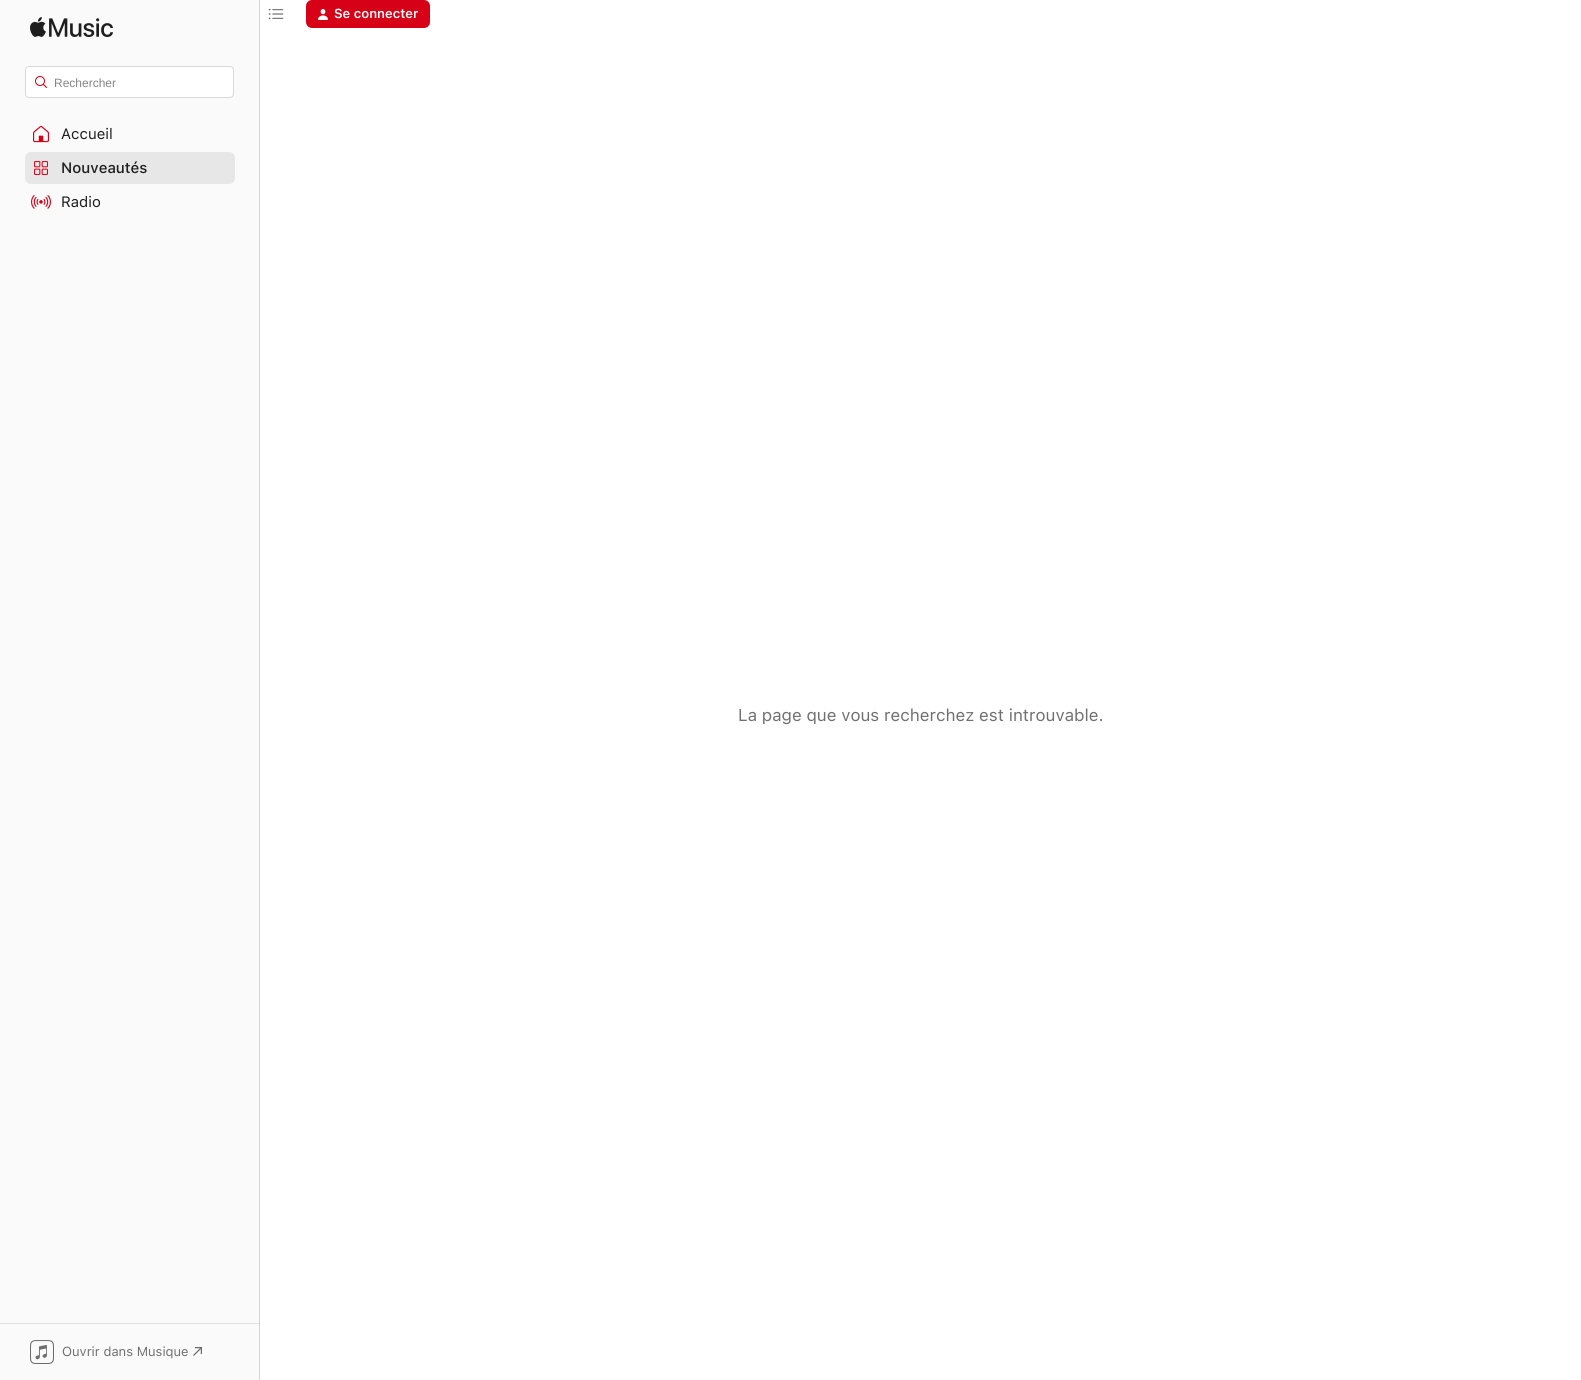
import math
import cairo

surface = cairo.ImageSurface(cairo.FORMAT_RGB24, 1581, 1380)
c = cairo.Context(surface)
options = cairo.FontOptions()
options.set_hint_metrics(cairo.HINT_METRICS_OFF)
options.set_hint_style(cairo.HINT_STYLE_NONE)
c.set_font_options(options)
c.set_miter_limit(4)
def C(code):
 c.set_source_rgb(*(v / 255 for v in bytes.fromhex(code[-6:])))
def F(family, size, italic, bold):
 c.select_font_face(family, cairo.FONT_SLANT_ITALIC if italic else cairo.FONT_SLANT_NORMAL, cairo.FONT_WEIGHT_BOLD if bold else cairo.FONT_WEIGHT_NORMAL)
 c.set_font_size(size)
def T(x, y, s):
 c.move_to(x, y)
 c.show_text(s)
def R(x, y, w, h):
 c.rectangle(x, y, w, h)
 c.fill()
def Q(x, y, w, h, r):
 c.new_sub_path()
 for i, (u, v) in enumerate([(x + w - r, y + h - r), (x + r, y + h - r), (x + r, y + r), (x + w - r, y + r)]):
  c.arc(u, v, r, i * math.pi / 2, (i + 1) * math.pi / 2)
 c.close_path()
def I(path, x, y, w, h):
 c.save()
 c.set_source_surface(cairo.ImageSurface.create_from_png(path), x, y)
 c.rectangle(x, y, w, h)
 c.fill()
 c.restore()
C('ffffff')
c.paint()
I('1.png',268,8,16,12)
C('d60017')
Q(306,0,124,28,6)
c.fill()
I('2.png',318,9,10,11)
F('SF SemiBold',13,0,0)
C('ffffff')
T(334,18,'Se connecter')
C('fafafa')
R(0,0,259,1380)
C('e1e1e1')
R(0,1323,260,1)
C('d5d5d5')
R(259,0,1,1380)
C('c0c0c0')
R(259,1323,1,1)
I('3.png',30,17,83,20)
C('ffffff')
Q(25.5,66.5,208,31,3.5)
c.fill_preserve()
C('d9d9d9')
c.set_line_width(1)
c.stroke()
I('4.png',35,76,12,12)
F('Liberation Sans',12,0,0)
C('858585')
T(54,87,'Rechercher')
I('5.png',33,125,16,18)
F('SF',15,0,0)
C('1e1e1e')
T(61,139,'Accueil')
C('e7e7e8')
Q(25,152,210,32,6)
c.fill()
I('6.png',34,161,14,14)
F('SF Medium',15,0,0)
C('1e1e1e')
T(61,173,'Nouveautés')
I('7.png',31,195,20,14)
F('SF',15,0,0)
T(61,207,'Radio')
I('8.png',30,1340,24,24)
F('SF',13,0,0)
C('707070')
T(62,1356,'Ouvrir dans Musique')
I('9.png',193,1347,9,9)
F('SF',17,0,0)
T(738,721,'La page que vous recherchez est introuvable.')
surface.write_to_png('o.png')
